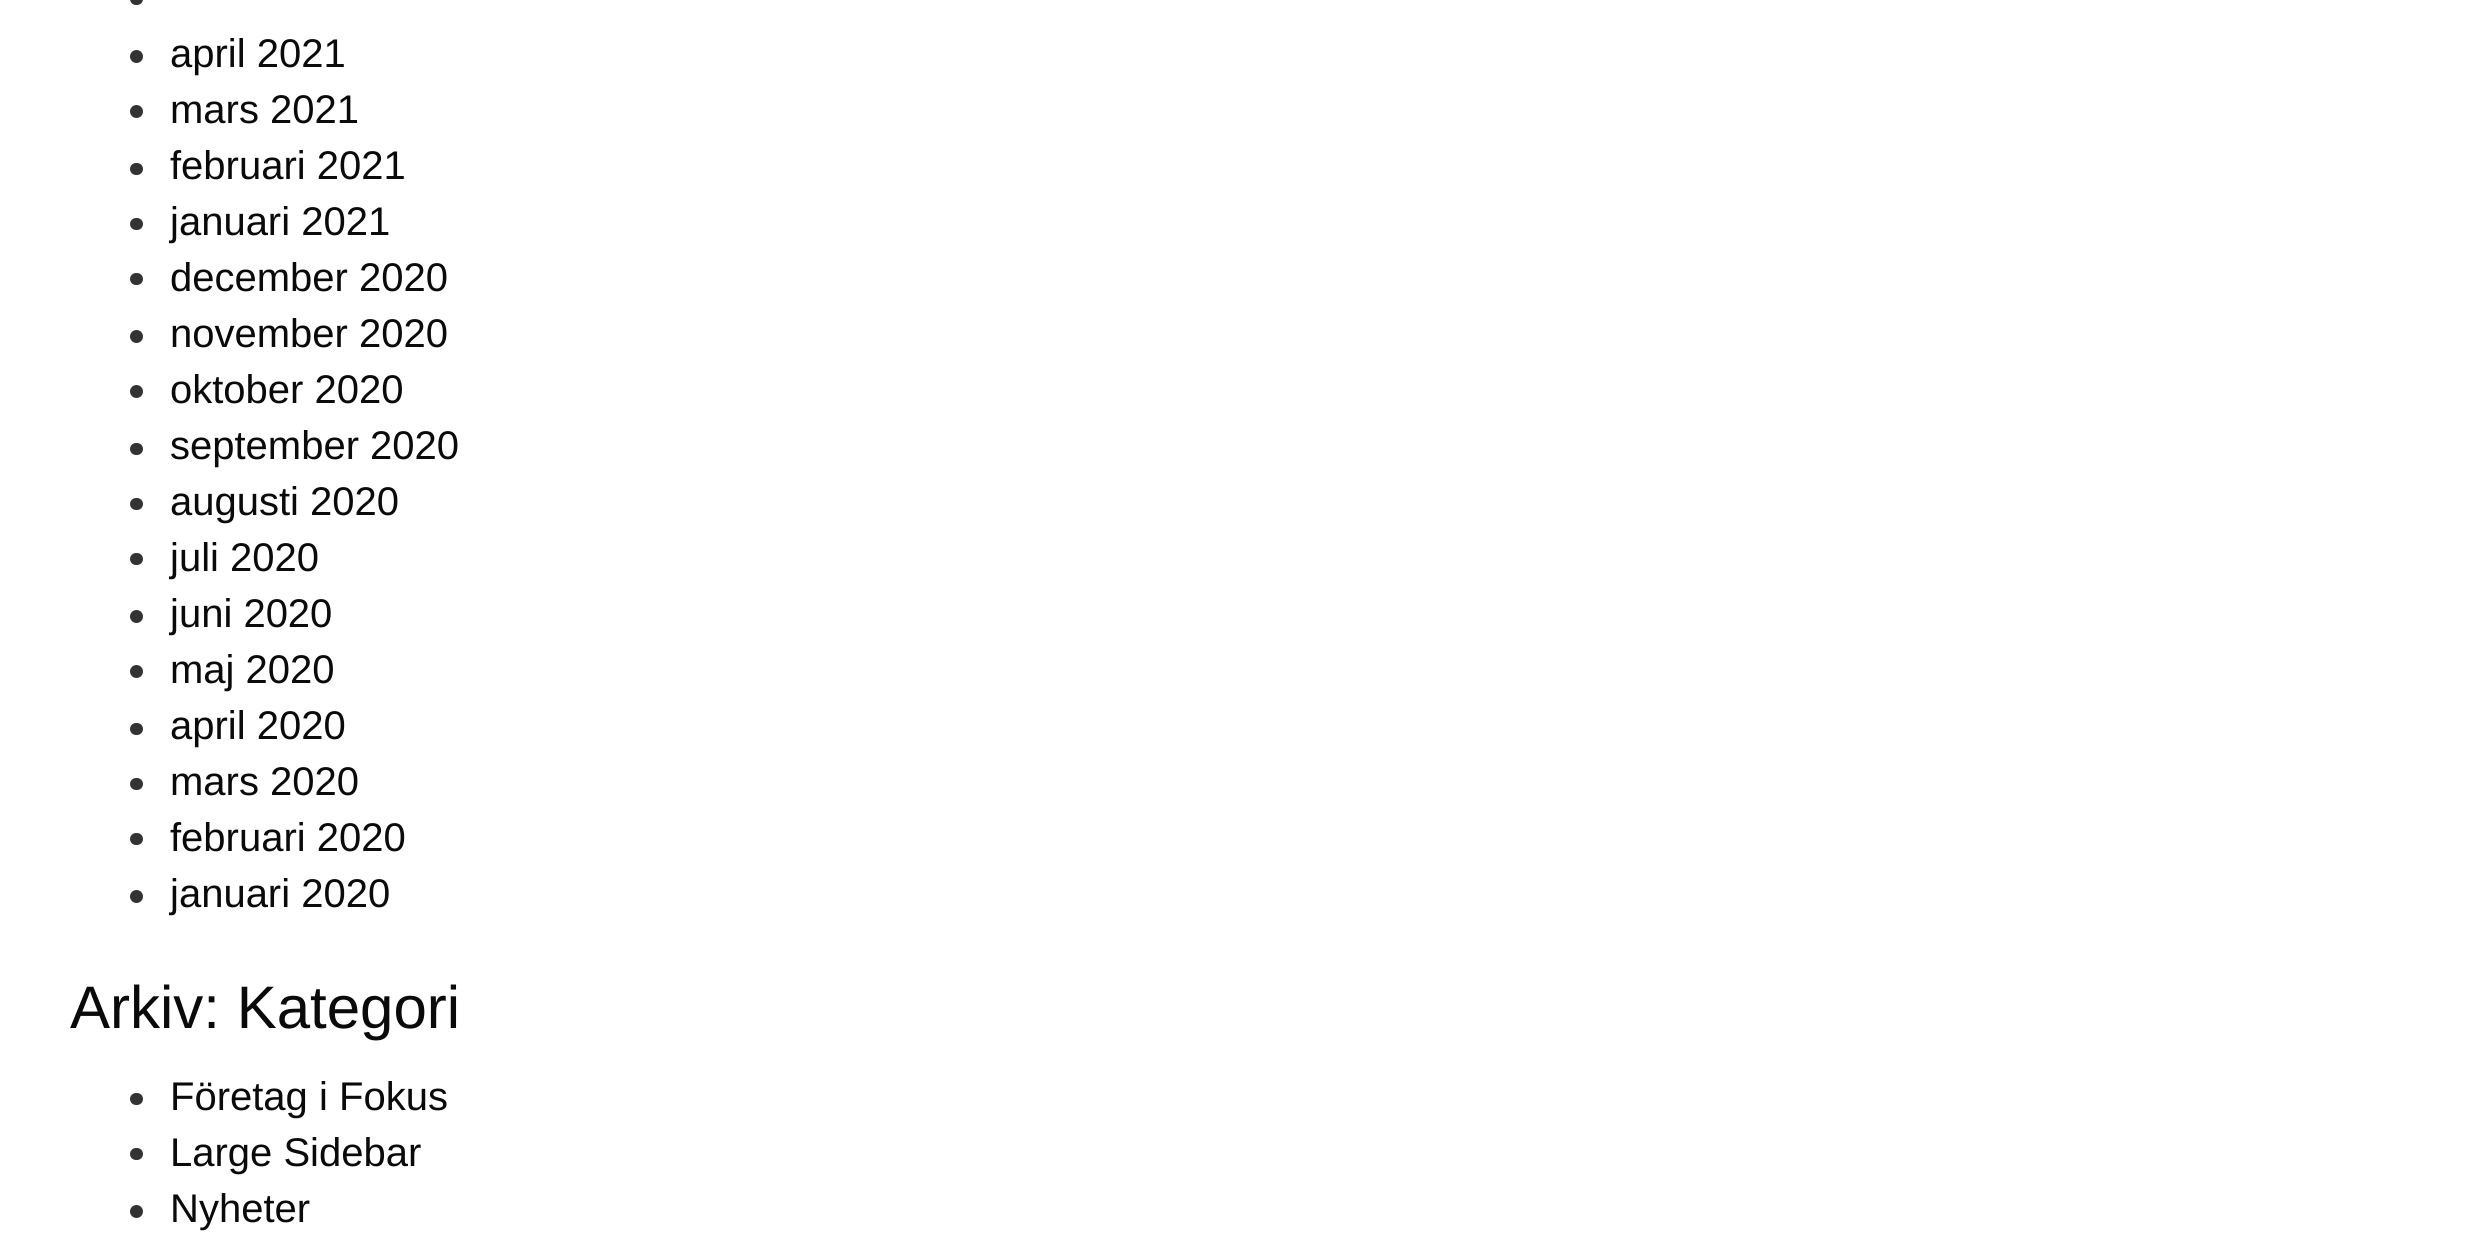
import math
import cairo

surface = cairo.ImageSurface(cairo.FORMAT_RGB24, 2490, 1235)
c = cairo.Context(surface)
options = cairo.FontOptions()
options.set_hint_metrics(cairo.HINT_METRICS_OFF)
options.set_hint_style(cairo.HINT_STYLE_NONE)
c.set_font_options(options)
c.set_miter_limit(4)
def C(code):
 c.set_source_rgb(*(v / 255 for v in bytes.fromhex(code[-6:])))
def F(family, size, italic, bold):
 c.select_font_face(family, cairo.FONT_SLANT_ITALIC if italic else cairo.FONT_SLANT_NORMAL, cairo.FONT_WEIGHT_BOLD if bold else cairo.FONT_WEIGHT_NORMAL)
 c.set_font_size(size)
def T(x, y, s):
 c.move_to(x, y)
 c.show_text(s)
def Q(x, y, w, h, r):
 c.new_sub_path()
 for i, (u, v) in enumerate([(x + w - r, y + h - r), (x + r, y + h - r), (x + r, y + r), (x + w - r, y + r)]):
  c.arc(u, v, r, i * math.pi / 2, (i + 1) * math.pi / 2)
 c.close_path()
C('ffffff')
c.paint()
C('333333')
Q(130,-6,13,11,6)
c.fill()
c.arc(136.5,56.5,6.5,0,2 * math.pi)
c.fill()
F('Liberation Sans',40,0,0)
C('0a0a0a')
T(170,67,'april 2021')
C('333333')
c.new_path()
c.arc(136.5,111.5,6.5,0,2 * math.pi)
c.fill()
C('0a0a0a')
T(170,123,'mars 2021')
C('333333')
Q(130,163,13,12,6)
c.fill()
C('0a0a0a')
T(170,179,'februari 2021')
C('333333')
Q(130,218,13,12,6)
c.fill()
C('0a0a0a')
T(170,235,'januari 2021')
C('333333')
Q(130,273,13,12,6)
c.fill()
C('0a0a0a')
T(170,291,'december 2020')
C('333333')
c.new_path()
c.arc(136.5,336.5,6.5,0,2 * math.pi)
c.fill()
C('0a0a0a')
T(170,347,'november 2020')
C('333333')
c.new_path()
c.arc(136.5,391.5,6.5,0,2 * math.pi)
c.fill()
C('0a0a0a')
T(170,403,'oktober 2020')
C('333333')
Q(130,443,13,12,6)
c.fill()
C('0a0a0a')
T(170,459,'september 2020')
C('333333')
Q(130,498,13,12,6)
c.fill()
C('0a0a0a')
T(170,515,'augusti 2020')
C('333333')
Q(130,553,13,12,6)
c.fill()
C('0a0a0a')
T(170,571,'juli 2020')
C('333333')
c.new_path()
c.arc(136.5,616.5,6.5,0,2 * math.pi)
c.fill()
C('0a0a0a')
T(170,627,'juni 2020')
C('333333')
c.new_path()
c.arc(136.5,671.5,6.5,0,2 * math.pi)
c.fill()
C('0a0a0a')
T(170,683,'maj 2020')
C('333333')
Q(130,723,13,12,6)
c.fill()
C('0a0a0a')
T(170,739,'april 2020')
C('333333')
Q(130,778,13,12,6)
c.fill()
C('0a0a0a')
T(170,795,'mars 2020')
C('333333')
Q(130,833,13,12,6)
c.fill()
C('0a0a0a')
T(170,851,'februari 2020')
C('333333')
c.new_path()
c.arc(136.5,896.5,6.5,0,2 * math.pi)
c.fill()
C('0a0a0a')
T(170,907,'januari 2020')
F('Liberation Sans',60,0,0)
T(70,1028,'Arkiv: Kategori')
C('333333')
Q(130,1093,13,12,6)
c.fill()
F('Liberation Sans',40,0,0)
C('0a0a0a')
T(170,1110,'Företag i Fokus')
C('333333')
Q(130,1148,13,12,6)
c.fill()
C('0a0a0a')
T(170,1166,'Large Sidebar')
C('333333')
c.new_path()
c.arc(136.5,1211.5,6.5,0,2 * math.pi)
c.fill()
C('0a0a0a')
T(170,1222,'Nyheter')
surface.write_to_png('o.png')
